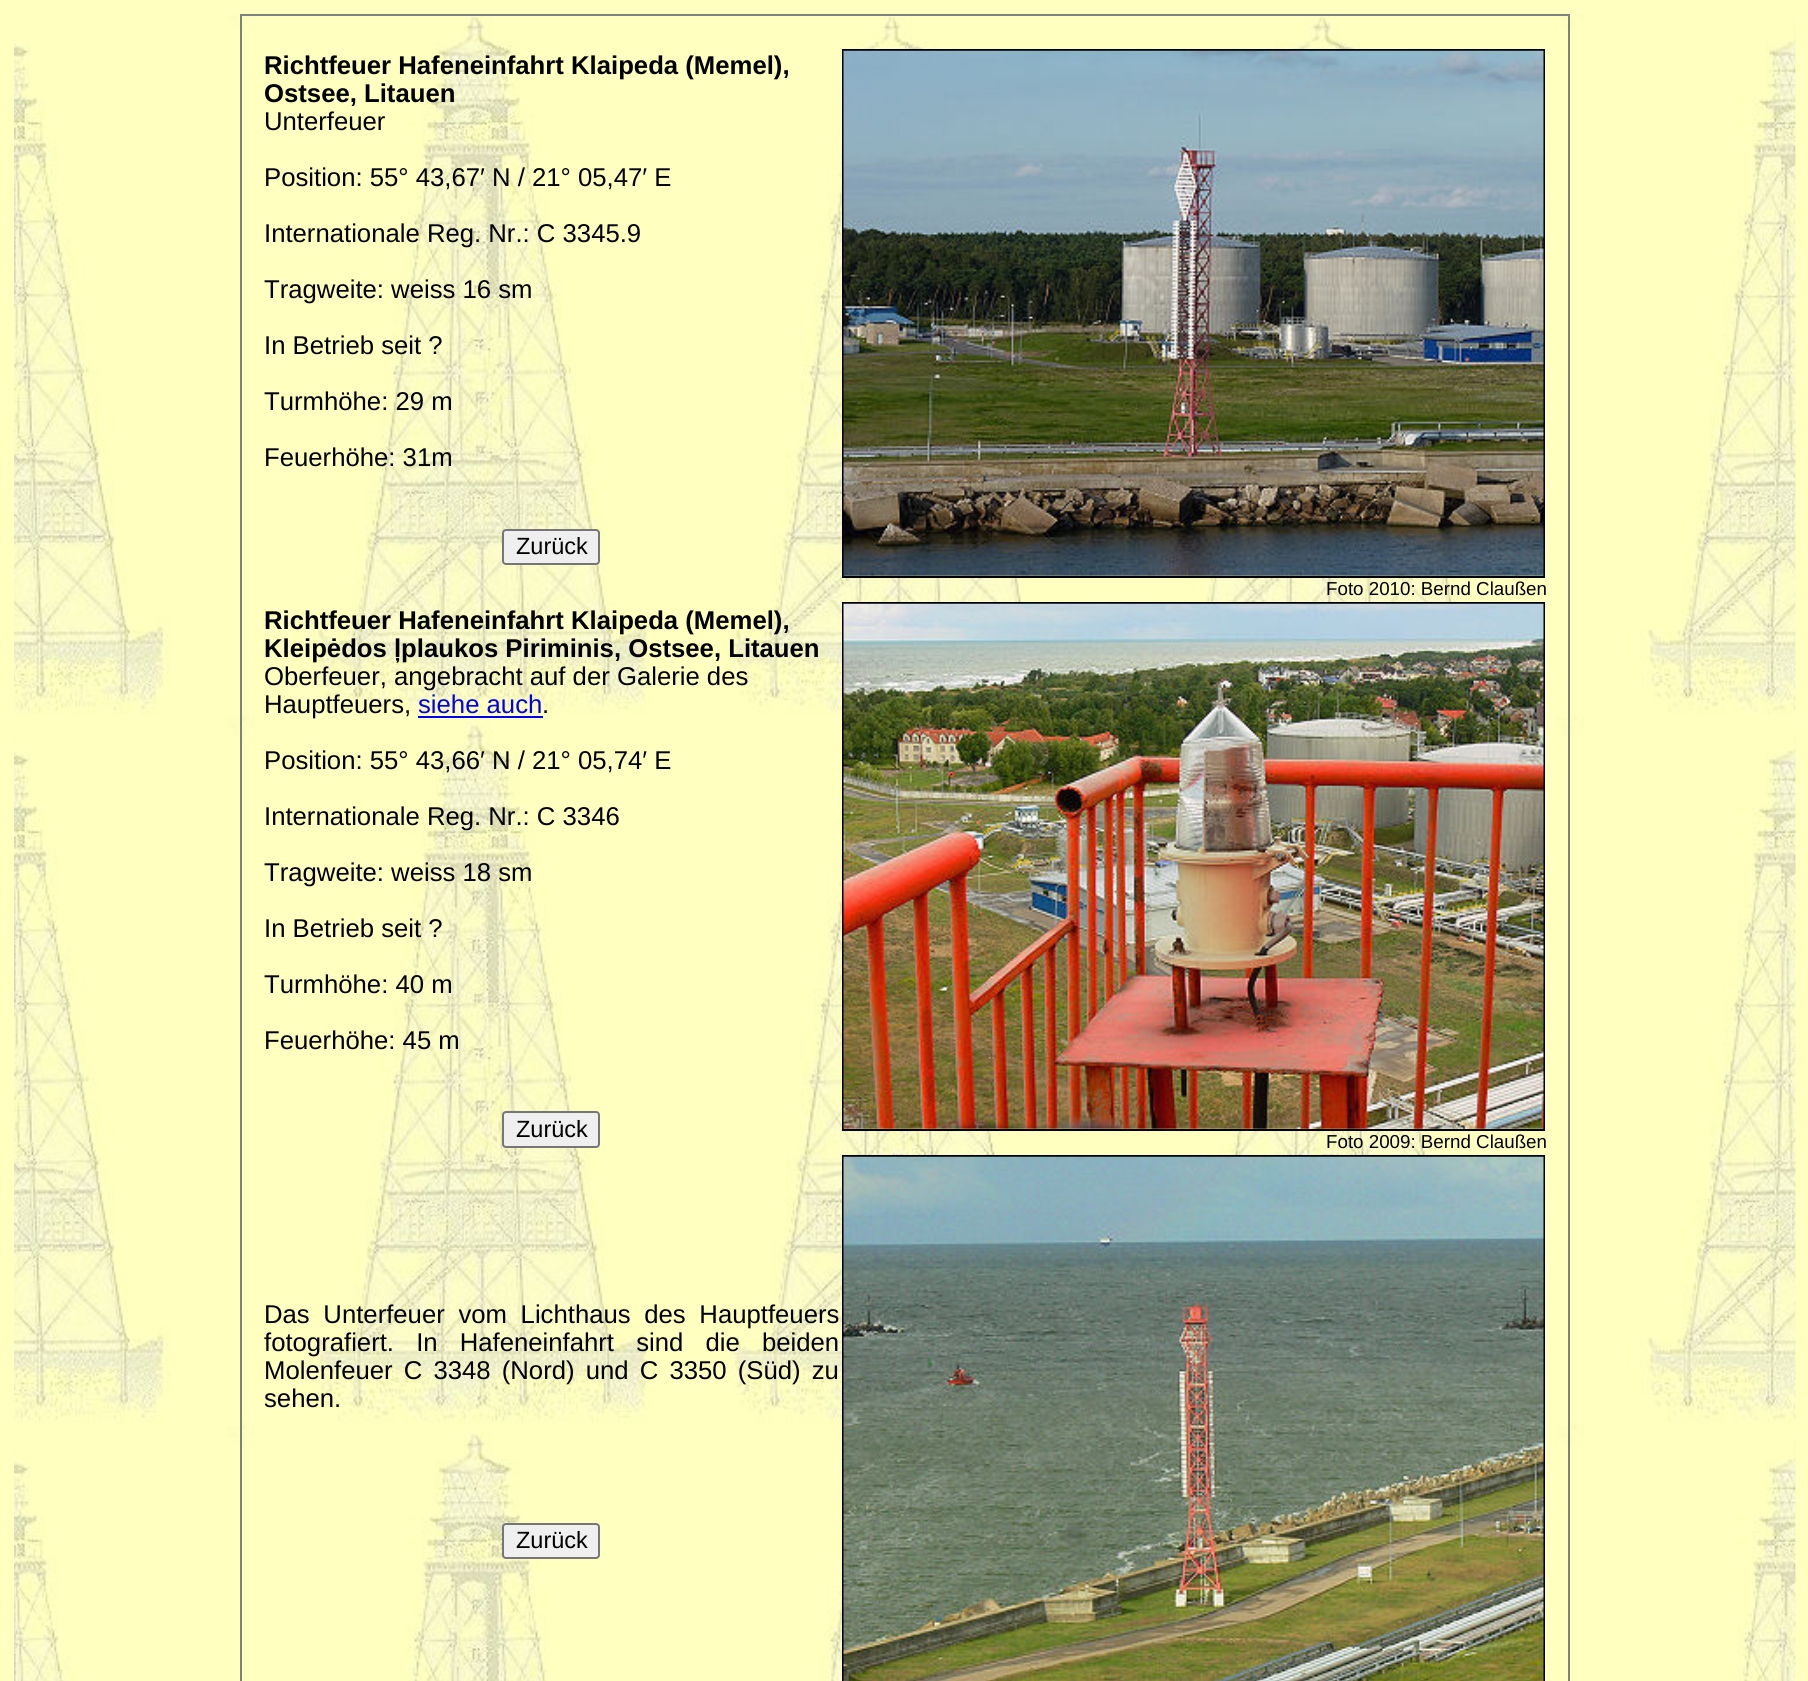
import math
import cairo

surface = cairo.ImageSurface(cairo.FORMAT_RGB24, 1808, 1681)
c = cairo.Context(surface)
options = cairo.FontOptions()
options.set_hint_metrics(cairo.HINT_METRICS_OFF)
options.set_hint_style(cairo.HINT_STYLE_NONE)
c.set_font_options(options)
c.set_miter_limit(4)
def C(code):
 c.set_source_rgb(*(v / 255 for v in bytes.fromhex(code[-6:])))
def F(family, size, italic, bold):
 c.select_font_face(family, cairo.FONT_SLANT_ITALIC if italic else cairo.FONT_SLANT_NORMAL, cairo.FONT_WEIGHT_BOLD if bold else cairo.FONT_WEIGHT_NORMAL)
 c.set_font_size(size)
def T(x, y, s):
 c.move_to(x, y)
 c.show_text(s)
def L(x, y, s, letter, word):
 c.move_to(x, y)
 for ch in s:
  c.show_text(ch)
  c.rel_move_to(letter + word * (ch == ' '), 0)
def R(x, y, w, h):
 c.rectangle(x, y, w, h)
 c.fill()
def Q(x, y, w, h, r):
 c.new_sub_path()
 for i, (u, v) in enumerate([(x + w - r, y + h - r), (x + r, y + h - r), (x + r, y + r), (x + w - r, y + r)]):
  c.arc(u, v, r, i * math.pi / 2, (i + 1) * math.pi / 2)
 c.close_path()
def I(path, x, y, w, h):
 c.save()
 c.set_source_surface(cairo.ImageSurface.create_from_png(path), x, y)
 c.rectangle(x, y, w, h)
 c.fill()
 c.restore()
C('ffffc0')
c.paint()
I('1.png',14,14,1782,1667)
C('808080')
R(240,14,1330,2)
R(1568,14,2,1667)
R(240,14,2,1667)
F('Liberation Sans',25.7,0,1)
C('000000')
T(264,74,'Richtfeuer Hafeneinfahrt Klaipeda (Memel),')
T(264,102,'Ostsee, Litauen')
F('Liberation Sans',25.7,0,0)
T(264,130,'Unterfeuer')
T(264,186,'Position: 55° 43,67′ N / 21° 05,47′ E')
T(264,242,'Internationale Reg. Nr.: C 3345.9')
T(264,298,'Tragweite: weiss 16 sm')
T(264,354,'In Betrieb seit ?')
T(264,410,'Turmhöhe: 29 m')
T(264,466,'Feuerhöhe: 31m')
C('efefef')
Q(503,530,96,34,3)
c.fill_preserve()
C('767676')
c.stroke()
F('Liberation Sans',23.5,0,0)
C('000000')
T(516,554,'Zurück')
c.rectangle(843,50,701,527)
c.stroke()
I('2.png',843,50,701,526)
F('Liberation Sans',18.75,0,0)
T(1326,595,'Foto 2010: Bernd Claußen')
F('Liberation Sans',25.7,0,1)
T(264,629,'Richtfeuer Hafeneinfahrt Klaipeda (Memel),')
T(264,657,'Kleipėdos ļplaukos Piriminis, Ostsee, Litauen')
F('Liberation Sans',25.7,0,0)
T(264,685,'Oberfeuer, angebracht auf der Galerie des')
T(264,713,'Hauptfeuers,')
C('0000ee')
T(418,713,'siehe auch')
C('000000')
T(542,713,'.')
C('0000ee')
R(418,716,125,2)
C('000000')
T(264,769,'Position: 55° 43,66′ N / 21° 05,74′ E')
T(264,825,'Internationale Reg. Nr.: C 3346')
T(264,881,'Tragweite: weiss 18 sm')
T(264,937,'In Betrieb seit ?')
T(264,993,'Turmhöhe: 40 m')
T(264,1049,'Feuerhöhe: 45 m')
C('efefef')
Q(503,1112,96,35,3)
c.fill_preserve()
C('767676')
c.stroke()
F('Liberation Sans',23.5,0,0)
C('000000')
T(516,1137,'Zurück')
c.rectangle(843,603,701,527)
c.stroke()
I('3.png',843,603,701,526)
F('Liberation Sans',18.75,0,0)
T(1326,1148,'Foto 2009: Bernd Claußen')
F('Liberation Sans',25.7,0,0)
L(264,1323,'Das Unterfeuer vom Lichthaus des Hauptfeuers',0,6.5)
L(264,1351,'fotografiert. In Hafeneinfahrt sind die beiden',0,15)
L(264,1379,'Molenfeuer C 3348 (Nord) und C 3350 (Süd) zu',0,4)
T(264,1407,'sehen.')
C('efefef')
Q(503,1524,96,34,3)
c.fill_preserve()
C('767676')
c.stroke()
F('Liberation Sans',23.5,0,0)
C('000000')
T(516,1548,'Zurück')
c.rectangle(843,1156,701,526)
c.stroke()
I('4.png',843,1156,701,525)
surface.write_to_png('o.png')
